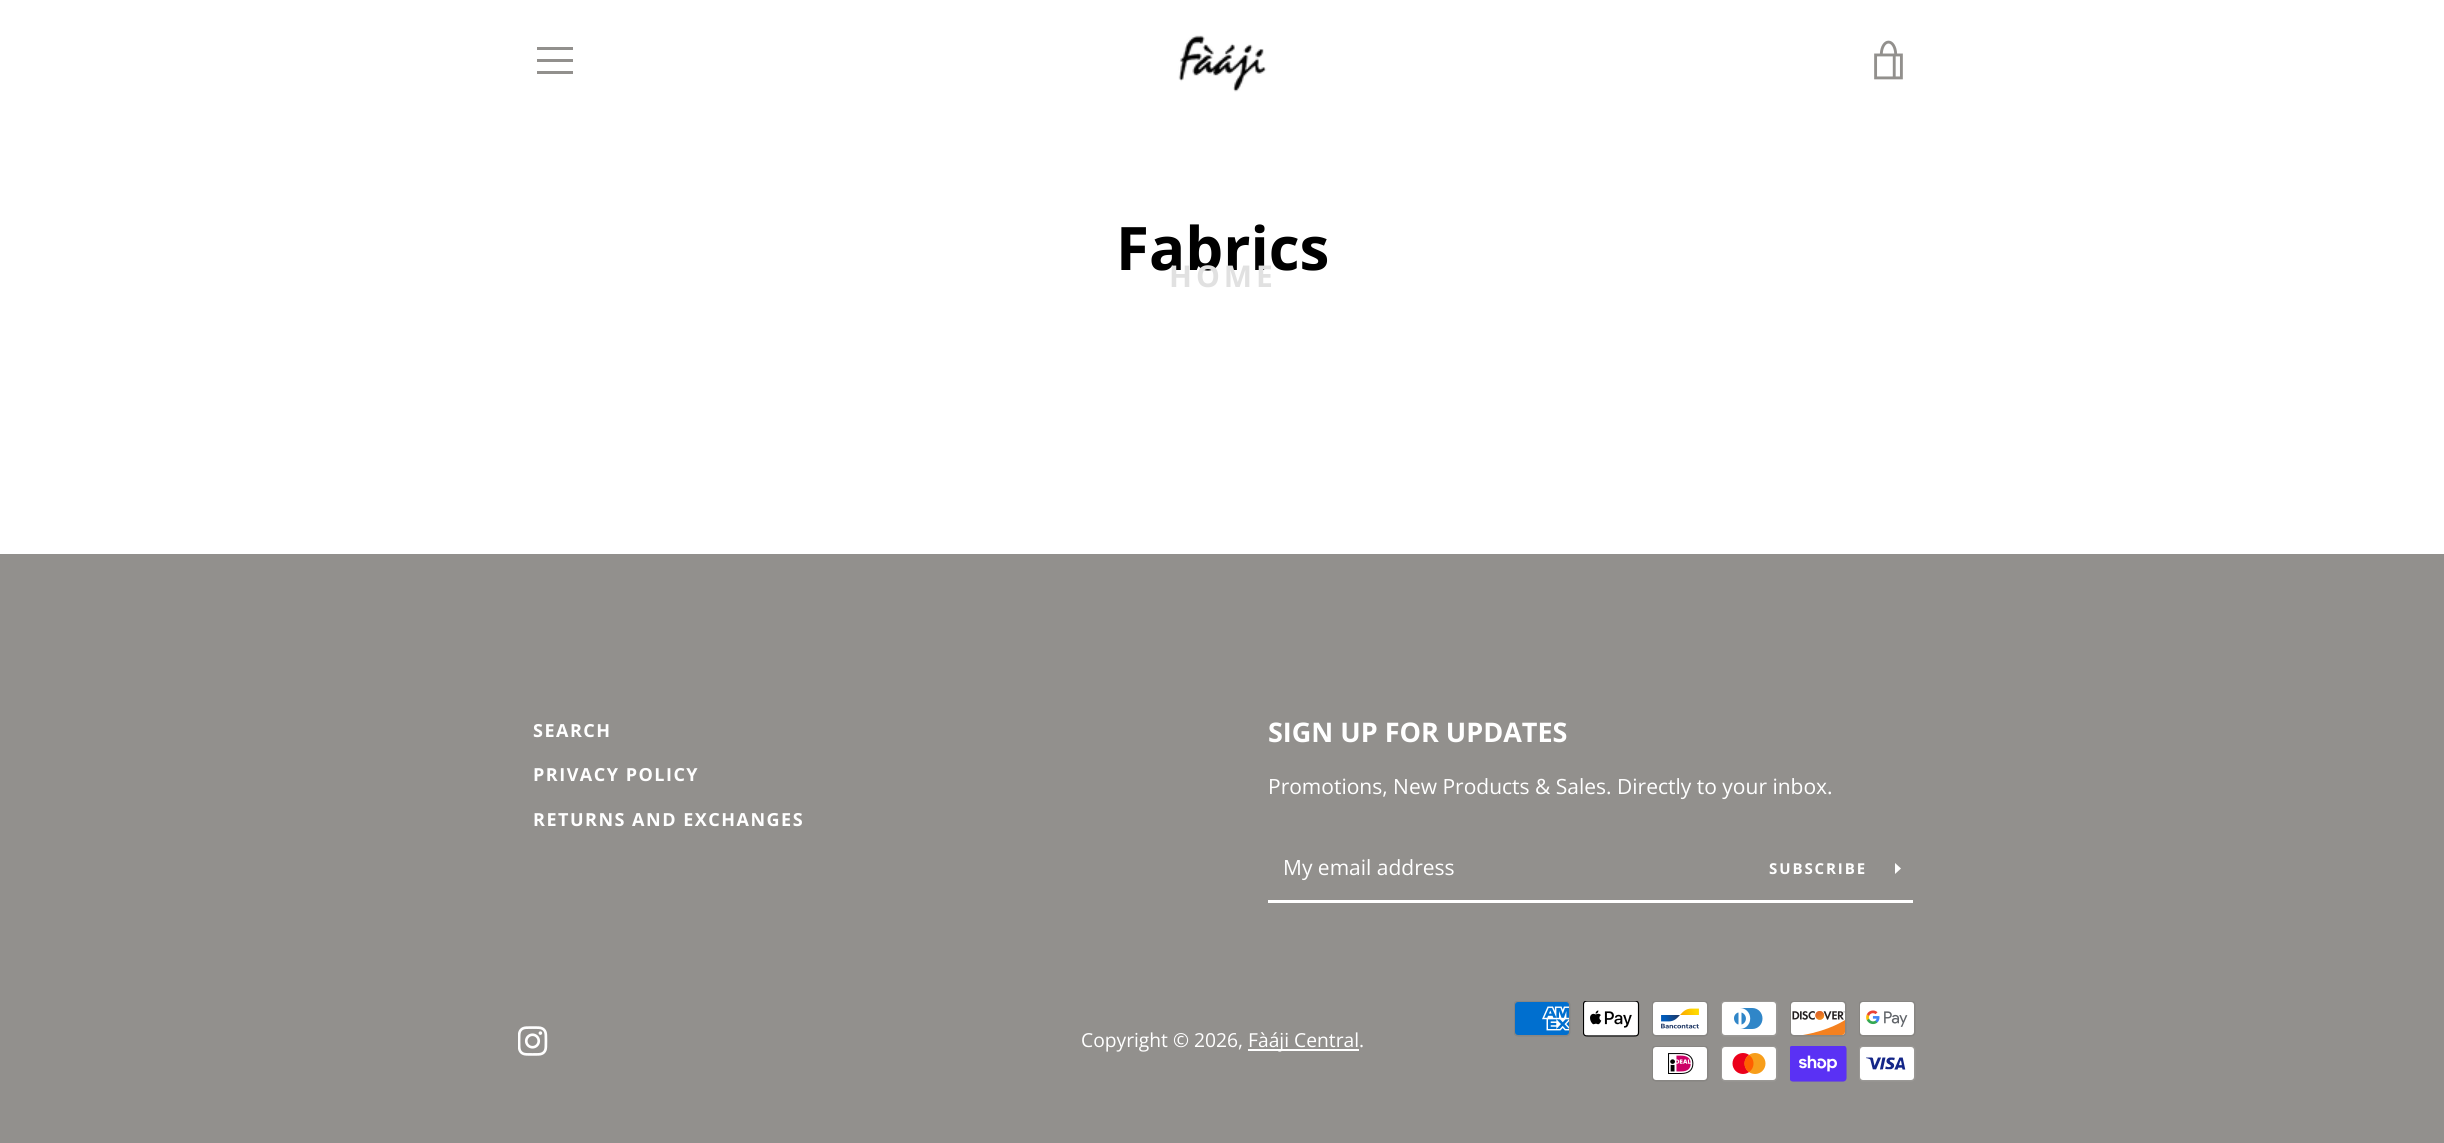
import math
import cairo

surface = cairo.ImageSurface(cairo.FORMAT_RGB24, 2444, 1143)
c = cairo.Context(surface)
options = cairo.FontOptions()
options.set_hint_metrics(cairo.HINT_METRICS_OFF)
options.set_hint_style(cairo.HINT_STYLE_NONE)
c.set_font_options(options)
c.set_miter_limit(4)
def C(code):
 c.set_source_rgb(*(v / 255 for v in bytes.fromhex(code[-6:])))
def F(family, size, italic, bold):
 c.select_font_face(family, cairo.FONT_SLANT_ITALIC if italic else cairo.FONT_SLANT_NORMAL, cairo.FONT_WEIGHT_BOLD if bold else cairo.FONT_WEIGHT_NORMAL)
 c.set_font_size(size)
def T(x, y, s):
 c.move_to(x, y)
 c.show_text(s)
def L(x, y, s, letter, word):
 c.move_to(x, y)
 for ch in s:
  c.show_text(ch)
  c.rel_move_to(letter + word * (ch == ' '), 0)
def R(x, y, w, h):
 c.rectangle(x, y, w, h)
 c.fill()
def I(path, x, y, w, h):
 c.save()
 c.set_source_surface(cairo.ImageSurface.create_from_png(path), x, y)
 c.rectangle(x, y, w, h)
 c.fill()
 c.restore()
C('92908d')
c.paint()
C('ffffff')
R(0,0,2444,554)
F('Open Sans',60,0,1)
C('000000')
T(1116,270,'Fabrics')
F('Open Sans',18,0,1)
C('ffffff')
L(533,737,'SEARCH',1.5,0)
L(533,781,'PRIVACY POLICY',1.5,0)
L(533,826,'RETURNS AND EXCHANGES',1.5,0)
F('Open Sans',27,0,1)
T(1268,742,'SIGN UP FOR UPDATES')
F('Open Sans',21,0,0)
T(1268,794,'Promotions, New Products & Sales. Directly to your inbox.')
R(1268,900,645,3)
T(1283,875,'My email address')
F('Open Sans',15,0,1)
L(1769,874,'SUBSCRIBE',1.9,0)
c.new_path()
c.move_to(1901,868.5)
c.line_to(1895,874)
c.line_to(1895,863)
c.close_path()
c.fill()
I('1.png',518,1026,30,30)
F('Open Sans',19.25,0,0)
T(1081,1047,'Copyright © 2026,')
R(1248,1049,111,2)
T(1248,1047,'Fàáji Central.')
I('2.png',1514,1001,57,36)
I('3.png',1583,1001,57,36)
I('4.png',1652,1001,57,36)
I('5.png',1721,1001,57,36)
I('6.png',1790,1001,57,36)
I('7.png',1859,1001,57,36)
I('8.png',1652,1046,57,36)
I('9.png',1721,1046,57,36)
I('10.png',1790,1046,57,36)
I('11.png',1859,1046,57,36)
I('12.png',1178,35,89,57)
I('13.png',1874,40,29,40)
C('92908d')
R(537,47,36,3)
R(537,59,36,3)
R(537,71,36,3)
F('Open Sans',30,0,1)
C('e1e1e1')
L(1169,287,'HOME',4,0)
surface.write_to_png('o.png')
